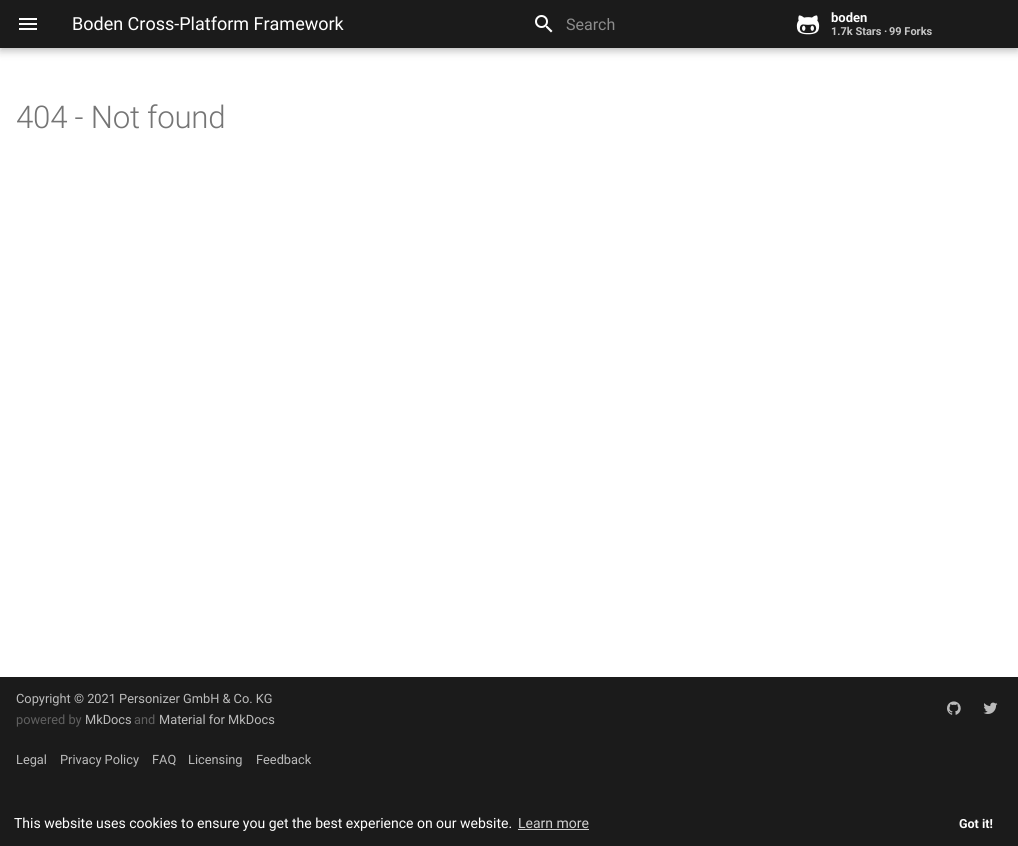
import math
import cairo

surface = cairo.ImageSurface(cairo.FORMAT_RGB24, 1018, 846)
c = cairo.Context(surface)
options = cairo.FontOptions()
options.set_hint_metrics(cairo.HINT_METRICS_OFF)
options.set_hint_style(cairo.HINT_STYLE_NONE)
c.set_font_options(options)
c.set_miter_limit(4)
def C(code):
 c.set_source_rgb(*(v / 255 for v in bytes.fromhex(code[-6:])))
def F(family, size, italic, bold):
 c.select_font_face(family, cairo.FONT_SLANT_ITALIC if italic else cairo.FONT_SLANT_NORMAL, cairo.FONT_WEIGHT_BOLD if bold else cairo.FONT_WEIGHT_NORMAL)
 c.set_font_size(size)
def T(x, y, s):
 c.move_to(x, y)
 c.show_text(s)
def L(x, y, s, letter, word):
 c.move_to(x, y)
 for ch in s:
  c.show_text(ch)
  c.rel_move_to(letter + word * (ch == ' '), 0)
def R(x, y, w, h):
 c.rectangle(x, y, w, h)
 c.fill()
def Q(x, y, w, h, r):
 c.new_sub_path()
 for i, (u, v) in enumerate([(x + w - r, y + h - r), (x + r, y + h - r), (x + r, y + r), (x + w - r, y + r)]):
  c.arc(u, v, r, i * math.pi / 2, (i + 1) * math.pi / 2)
 c.close_path()
def S(x, y, w, h, r, blur, alpha):
 c.push_group_with_content(cairo.CONTENT_ALPHA)
 c.set_operator(cairo.OPERATOR_SOURCE)
 for i in range(15, -16, -2):
  e = blur * i / 6
  if min(w, h) + 2 * e > 0:
   c.set_source_rgba(0, 0, 0, alpha * math.erfc((i - 1) / 8.5) / 2)
   Q(x - e, y - e, w + 2 * e, h + 2 * e, max(0, min(r + e + blur * .6, min(w, h) / 2 + e)))
   c.fill()
 c.mask(c.pop_group())
def I(path, x, y, w, h):
 c.save()
 c.set_source_surface(cairo.ImageSurface.create_from_png(path), x, y)
 c.rectangle(x, y, w, h)
 c.fill()
 c.restore()
C('ffffff')
c.paint()
C('000000')
S(0,4,1018,48,0,4,.2)
S(0,0,1018,48,0,2,.1)
C('1b1b1b')
R(0,0,1018,48)
I('1.png',19,18,18,12)
F('Roboto',18,0,0)
C('ffffff')
T(72,30,'Boden Cross-Platform Framework')
I('2.png',535,15,18,18)
F('Roboto',16,0,0)
C('8c8c8c')
T(566,30,'Search')
I('3.png',796,15,24,20)
F('Roboto',13,0,1)
C('ffffff')
T(831,22,'boden')
F('Roboto',11,0,1)
C('c6c6c6')
T(831,35,'1.7k Stars')
T(884,35,'·')
T(889,35,'99 Forks')
F('Roboto Light',31.25,0,0)
C('757575')
L(16,128,'404 - Not found',-.25,0)
C('1b1b1b')
R(0,677,1018,169)
F('Roboto',12.8,0,0)
C('bbbbbb')
T(16,703,'Copyright © 2021 Personizer GmbH & Co. KG')
C('5f5f5f')
T(16,724,'powered by')
C('bbbbbb')
T(85,724,'MkDocs')
C('5f5f5f')
T(134,724,'and')
C('bbbbbb')
T(159,724,'Material for MkDocs')
T(16,764,'Legal')
T(60,764,'Privacy Policy')
T(152,764,'FAQ')
T(188,764,'Licensing')
T(256,764,'Feedback')
I('4.png',947,701,14,14)
I('5.png',983,702,15,12)
F('Roboto',14,0,0)
C('ffffff')
T(14,828,'This website uses cookies to ensure you get the best experience on our website.')
C('d1d1d1')
T(518,828,'Learn more')
R(518,829,71,1)
F('Roboto',12.5,0,1)
C('ffffff')
T(959,828,'Got it!')
surface.write_to_png('o.png')
